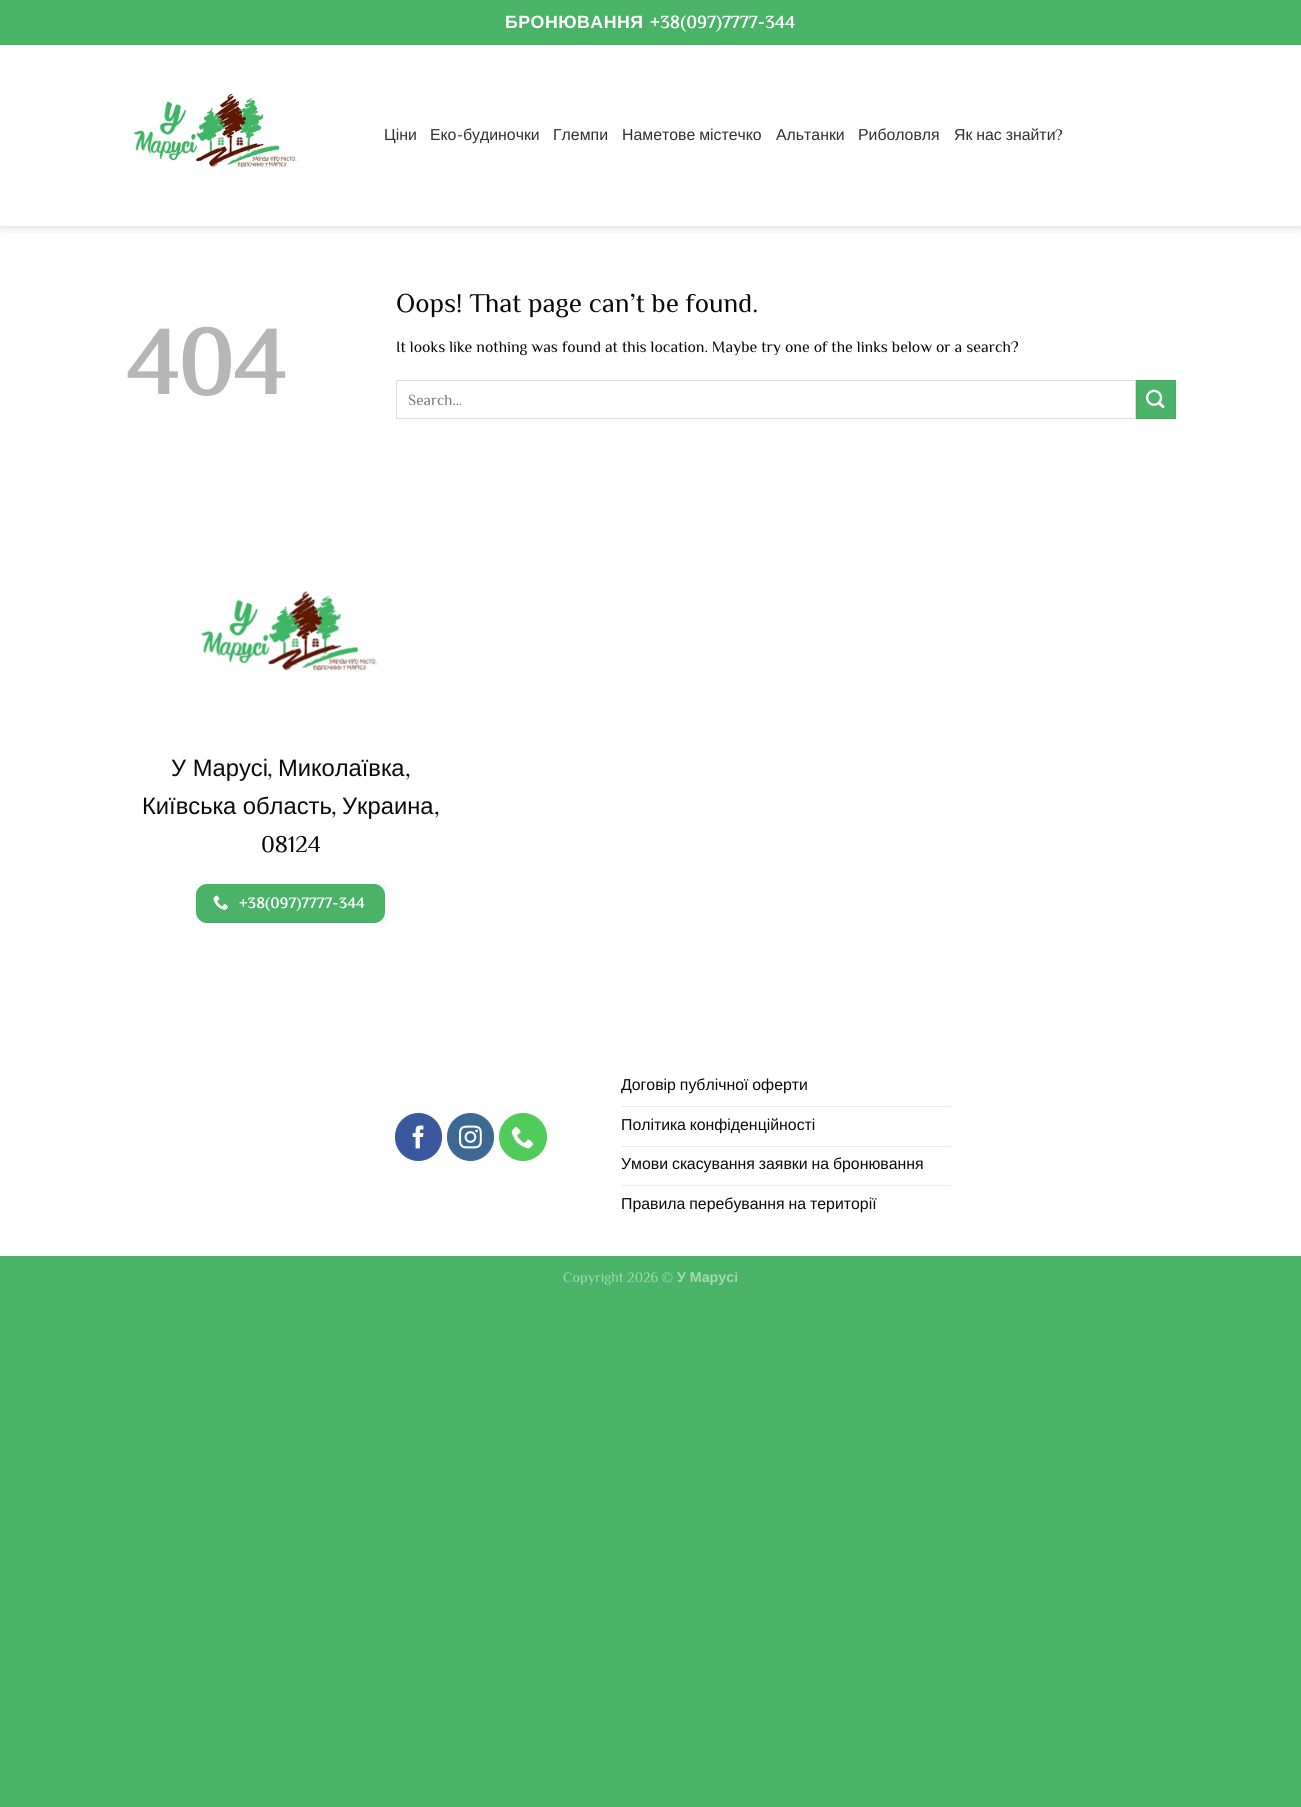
import math
import cairo

surface = cairo.ImageSurface(cairo.FORMAT_RGB24, 1301, 1807)
c = cairo.Context(surface)
options = cairo.FontOptions()
options.set_hint_metrics(cairo.HINT_METRICS_OFF)
options.set_hint_style(cairo.HINT_STYLE_NONE)
c.set_font_options(options)
c.set_miter_limit(4)
def C(code):
 c.set_source_rgb(*(v / 255 for v in bytes.fromhex(code[-6:])))
def F(family, size, italic, bold):
 c.select_font_face(family, cairo.FONT_SLANT_ITALIC if italic else cairo.FONT_SLANT_NORMAL, cairo.FONT_WEIGHT_BOLD if bold else cairo.FONT_WEIGHT_NORMAL)
 c.set_font_size(size)
def T(x, y, s):
 c.move_to(x, y)
 c.show_text(s)
def L(x, y, s, letter, word):
 c.move_to(x, y)
 for ch in s:
  c.show_text(ch)
  c.rel_move_to(letter + word * (ch == ' '), 0)
def R(x, y, w, h):
 c.rectangle(x, y, w, h)
 c.fill()
def Q(x, y, w, h, r):
 c.new_sub_path()
 for i, (u, v) in enumerate([(x + w - r, y + h - r), (x + r, y + h - r), (x + r, y + r), (x + w - r, y + r)]):
  c.arc(u, v, r, i * math.pi / 2, (i + 1) * math.pi / 2)
 c.close_path()
def S(x, y, w, h, r, blur, alpha):
 c.push_group_with_content(cairo.CONTENT_ALPHA)
 c.set_operator(cairo.OPERATOR_SOURCE)
 for i in range(15, -16, -2):
  e = blur * i / 6
  if min(w, h) + 2 * e > 0:
   c.set_source_rgba(0, 0, 0, alpha * math.erfc((i - 1) / 8.5) / 2)
   Q(x - e, y - e, w + 2 * e, h + 2 * e, max(0, min(r + e + blur * .6, min(w, h) / 2 + e)))
   c.fill()
 c.mask(c.pop_group())
def I(path, x, y, w, h):
 c.save()
 c.set_source_surface(cairo.ImageSurface.create_from_png(path), x, y)
 c.rectangle(x, y, w, h)
 c.fill()
 c.restore()
C('4bb368')
c.paint()
C('ffffff')
R(0,45,1301,1211)
c.save()
c.rectangle(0,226,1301,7)
c.clip()
C('000000')
S(1,1,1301,226,0,5,.15)
c.restore()
F('Liberation Sans',17.75,0,1)
L(505,28,'БРОНЮВАННЯ',.5,0)
F('Philosopher',17.75,0,1)
L(650,28,'+38(097)7777-344',.5,0)
I('1.png',134,93,163,75)
F('Liberation Sans',15.85,0,0)
C('303030')
T(384,140,'Ціни')
T(430,140,'Еко')
F('Philosopher',15.85,0,0)
T(457,140,'-')
F('Liberation Sans',15.85,0,0)
T(463,140,'будиночки')
T(553,140,'Глемпи')
L(622,140,'Наметове містечко',0,-.5)
T(776,140,'Альтанки')
T(858,140,'Риболовля')
L(954,140,'Як нас знайти',0,-.5)
F('Philosopher',15.85,0,0)
T(1055,140,'?')
F('Philosopher',95,0,1)
C('b6b6b6')
T(126,394,'404')
F('Philosopher',27,0,0)
C('0a0a0a')
T(396,312,'Oops! That page can’t be found.')
F('Philosopher',15.85,0,0)
T(396,352,'It looks like nothing was found at this location. Maybe try one of the links below or a search?')
c.rectangle(396.5,380.5,739,38)
C('dddddd')
c.set_line_width(1)
c.stroke()
F('Philosopher',15.25,0,0)
C('757575')
T(408,405,'Search…')
C('4bb368')
c.rectangle(1136.5,380.5,39,38)
c.fill_preserve()
C('47aa63')
c.stroke()
I('2.png',1146,389,19,20)
I('3.png',201,591,176,80)
F('Liberation Sans',23.75,0,0)
C('0a0a0a')
T(171,776,'У Марусі')
F('Philosopher',23.75,0,0)
T(267,776,',')
F('Liberation Sans',23.75,0,0)
T(278,776,'Миколаївка')
F('Philosopher',23.75,0,0)
T(405,776,',')
F('Liberation Sans',23.75,0,0)
T(142,814,'Київська область')
F('Philosopher',23.75,0,0)
T(331,814,',')
F('Liberation Sans',23.75,0,0)
T(342,814,'Украина')
F('Philosopher',23.75,0,0)
T(434,814,',')
T(261,852,'08124')
C('4bb368')
Q(196,884,189,39,11)
c.fill()
c.rectangle(196.5,884.5,188,38)
c.set_source_rgba(0,0,0,0.05)
c.stroke()
I('4.png',213,895,15,15)
F('Philosopher',15.25,0,1)
C('ffffff')
L(239,908,'+38(097)7777-344',.5,0)
C('3a589d')
Q(395.5,1113.5,46,47,23)
c.fill_preserve()
c.stroke()
I('5.png',412,1125,12,24)
C('3b6994')
Q(447.5,1113.5,46,47,23)
c.fill_preserve()
c.stroke()
I('6.png',459,1125,23,24)
C('51cb5a')
c.arc(523,1137,23.5,0,2 * math.pi)
c.fill_preserve()
c.stroke()
I('7.png',511,1127,23,22)
C('ececec')
R(621,1106,330,1)
F('Liberation Sans',15.85,0,0)
C('0a0a0a')
L(621,1090,'Договір публічної оферти',0,-.5)
C('ececec')
R(621,1146,330,1)
C('0a0a0a')
L(621,1130,'Політика конфіденційності',0,-.5)
C('ececec')
R(621,1185,330,1)
C('0a0a0a')
L(621,1169,'Умови скасування заявки на бронювання',0,-.5)
L(621,1209,'Правила перебування на території',0,-.5)
F('Philosopher',14.25,0,0)
C('a5d9b4')
T(563,1282,'Copyright 2026 ©')
F('Liberation Sans',14.25,0,1)
T(677,1282,'У Марусі')
surface.write_to_png('o.png')
